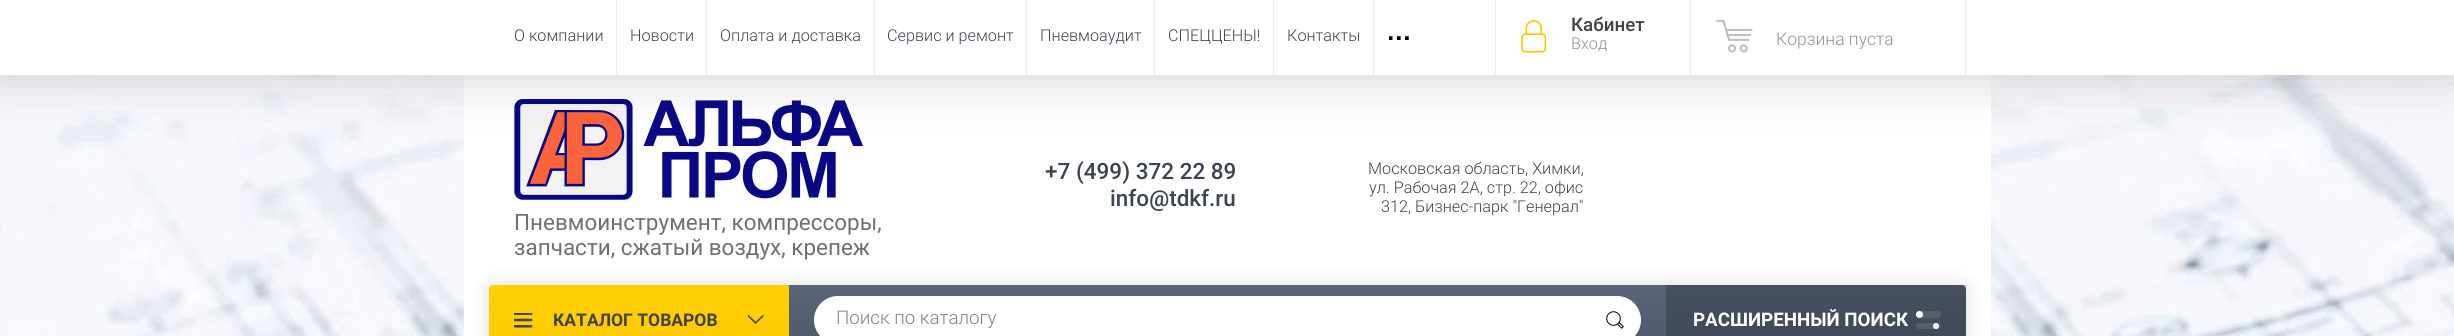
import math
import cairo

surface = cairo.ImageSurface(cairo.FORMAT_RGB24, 2454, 336)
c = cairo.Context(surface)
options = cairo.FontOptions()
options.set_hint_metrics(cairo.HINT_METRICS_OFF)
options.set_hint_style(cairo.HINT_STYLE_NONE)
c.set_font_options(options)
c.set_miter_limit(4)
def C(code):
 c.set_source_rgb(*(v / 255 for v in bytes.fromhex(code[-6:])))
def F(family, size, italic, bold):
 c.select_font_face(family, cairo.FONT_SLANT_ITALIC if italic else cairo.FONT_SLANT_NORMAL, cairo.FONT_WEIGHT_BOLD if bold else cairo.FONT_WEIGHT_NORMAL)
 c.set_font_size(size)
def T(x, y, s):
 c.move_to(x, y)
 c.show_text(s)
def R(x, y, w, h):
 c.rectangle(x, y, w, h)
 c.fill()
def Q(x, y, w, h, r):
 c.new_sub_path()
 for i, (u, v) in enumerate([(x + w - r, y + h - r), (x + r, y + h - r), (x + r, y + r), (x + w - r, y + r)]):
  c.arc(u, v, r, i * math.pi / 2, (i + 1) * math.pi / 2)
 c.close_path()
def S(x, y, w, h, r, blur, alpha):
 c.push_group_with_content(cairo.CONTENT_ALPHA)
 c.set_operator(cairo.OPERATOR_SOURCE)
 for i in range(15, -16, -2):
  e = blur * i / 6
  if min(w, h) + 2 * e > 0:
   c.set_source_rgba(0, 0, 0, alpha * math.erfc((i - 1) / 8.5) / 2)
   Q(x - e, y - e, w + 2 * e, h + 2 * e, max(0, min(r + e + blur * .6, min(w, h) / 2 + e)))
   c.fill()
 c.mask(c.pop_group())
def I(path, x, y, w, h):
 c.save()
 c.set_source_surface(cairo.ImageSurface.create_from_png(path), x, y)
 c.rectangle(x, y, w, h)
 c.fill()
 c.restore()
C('ffffff')
c.paint()
I('1.png',0,75,2454,261)
C('ffffff')
R(464,75,1527,261)
I('5.png',514,99,349,101)
C('000000')
S(0,1,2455,75,0,25,.2)
C('ffffff')
R(0,0,2454,75)
F('Roboto Light',16.25,0,0)
C('3c4452')
T(514,41,'О компании')
C('ececec')
R(616,0,1,75)
C('3c4452')
T(630,41,'Новости')
C('ececec')
R(706,0,1,75)
C('3c4452')
T(720,41,'Оплата и доставка')
C('ececec')
R(874,0,1,75)
C('3c4452')
T(887,41,'Сервис и ремонт')
C('ececec')
R(1026,0,1,75)
C('3c4452')
T(1040,41,'Пневмоаудит')
C('ececec')
R(1154,0,1,75)
C('3c4452')
T(1168,41,'СПЕЦЦЕНЫ!')
C('ececec')
R(1273,0,1,75)
C('3c4452')
T(1287,41,'Контакты')
C('ececec')
R(1373,0,1,75)
I('2.png',1389,36,20,4)
R(1495,0,1,75)
R(1690,0,1,75)
I('3.png',1521,20,25,33)
F('Roboto Medium',18.75,0,0)
C('424242')
T(1571,31,'Кабинет')
F('Roboto Light',16.25,0,0)
C('8e9298')
T(1571,49,'Вход')
C('ececec')
R(1965,0,1,75)
I('4.png',1716,20,37,33)
F('Roboto Light',17.5,0,0)
C('8e9298')
T(1776,45,'Корзина пуста')
F('Roboto Medium',22.5,0,0)
C('3c4452')
T(1045,179,'+7 (499) 372 22 89')
T(1110,206,'info@tdkf.ru')
F('Roboto Light',16.25,0,0)
T(1368,174,'Московская область, Химки,')
T(1369,193,'ул. Рабочая 2А, стр. 22, офис')
T(1381,212,'312, Бизнес-парк "Генерал"')
F('Roboto',22.5,0,0)
C('707070')
T(514,230,'Пневмоинструмент, компрессоры,')
T(514,255,'запчасти, сжатый воздух, крепеж')
C('000000')
S(489,285,1477,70,5,9.5,.13)
gradient = cairo.LinearGradient(1228,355,1228,285)
gradient.add_color_stop_rgba(0,0.306,0.349,0.416,1)
gradient.add_color_stop_rgba(1,0.345,0.392,0.467,1)
c.set_source(gradient)
c.new_path()
c.move_to(494,285)
c.line_to(1962,285)
c.curve_to(1964,285,1966,287,1966,289)
c.line_to(1966,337)
c.curve_to(1966,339,1964,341,1962,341)
c.line_to(494,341)
c.curve_to(491,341,489,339,489,336)
c.line_to(489,290)
c.curve_to(489,287,491,285,494,285)
c.close_path()
c.fill()
gradient = cairo.LinearGradient(639,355,639,285)
gradient.add_color_stop_rgba(0,1,0.788,0.012,1)
gradient.add_color_stop_rgba(1,1,0.816,0.012,1)
c.set_source(gradient)
c.new_path()
c.move_to(493,285)
c.line_to(789,285)
c.line_to(789,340)
c.line_to(493,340)
c.curve_to(491,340,489,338,489,336)
c.line_to(489,289)
c.curve_to(489,287,491,285,493,285)
c.close_path()
c.fill()
I('6.png',514,313,19,15)
F('Roboto',17.5,0,1)
C('424242')
T(553,326,'КАТАЛОГ ТОВАРОВ')
I('7.png',748,315,16,9)
C('ffffff')
Q(814,296,827,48,24)
c.fill()
F('Roboto Light',18.75,0,0)
C('818181')
T(836,324,'Поиск по каталогу')
I('8.png',1606,311,18,18)
c.set_source_rgba(0,0,0,0.2)
R(1666,285,300,51)
F('Roboto',18.75,0,1)
C('ffffff')
T(1693,326,'РАСШИРЕННЫЙ ПОИСК')
C('575f6c')
Q(1916,311,25,7,3.5)
c.fill()
C('ffffff')
c.arc(1919.5,314.5,3.5,0,2 * math.pi)
c.fill()
C('565e6b')
Q(1916,323,25,6,3)
c.fill()
C('ffffff')
c.arc(1936,326,3,0,2 * math.pi)
c.fill()
surface.write_to_png('o.png')
